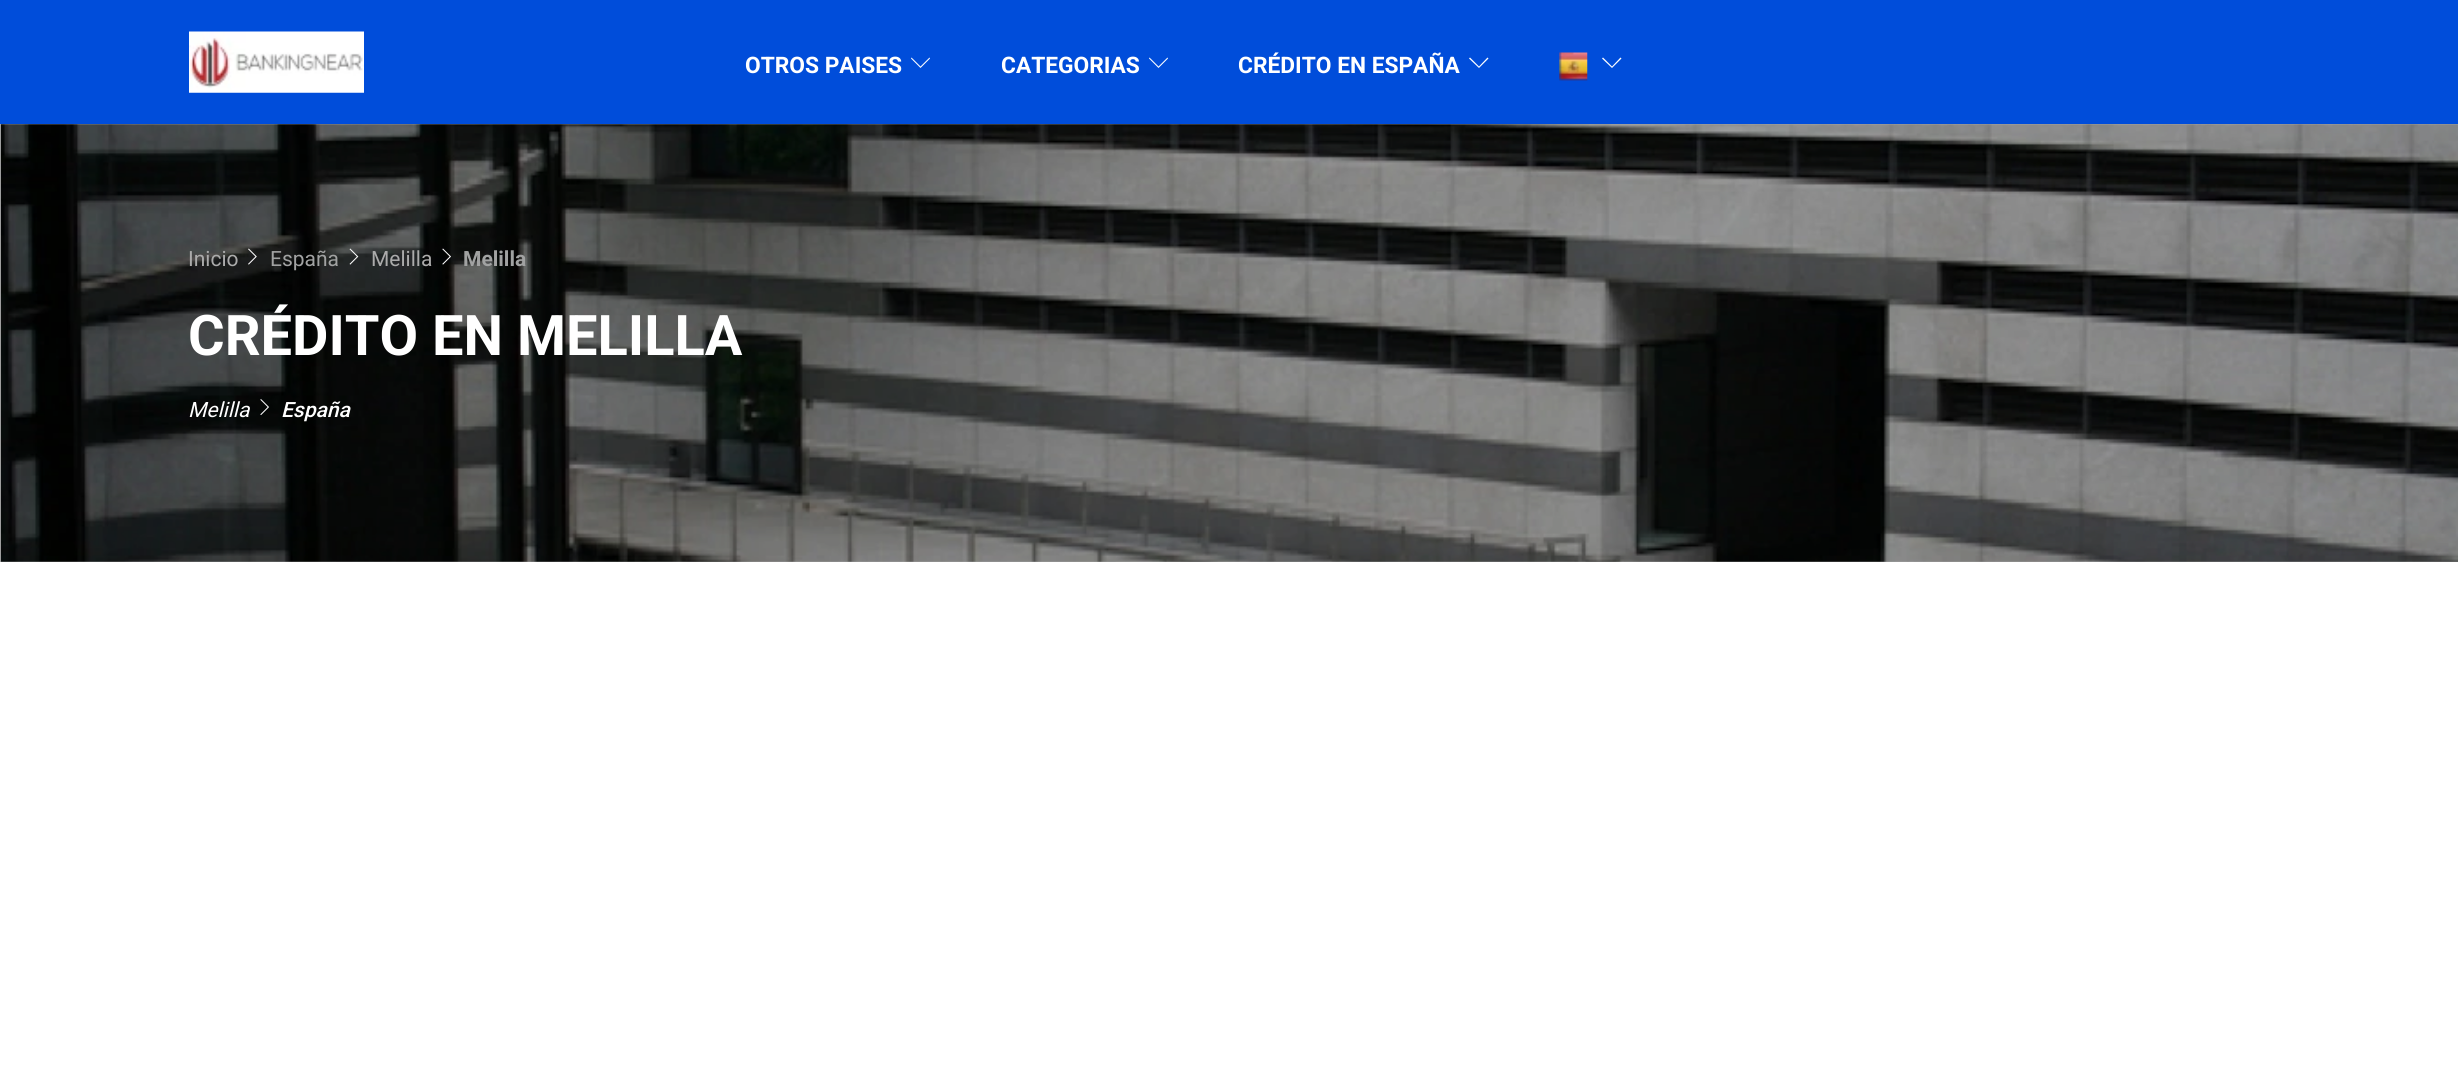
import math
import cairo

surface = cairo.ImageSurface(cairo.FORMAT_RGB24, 2458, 1074)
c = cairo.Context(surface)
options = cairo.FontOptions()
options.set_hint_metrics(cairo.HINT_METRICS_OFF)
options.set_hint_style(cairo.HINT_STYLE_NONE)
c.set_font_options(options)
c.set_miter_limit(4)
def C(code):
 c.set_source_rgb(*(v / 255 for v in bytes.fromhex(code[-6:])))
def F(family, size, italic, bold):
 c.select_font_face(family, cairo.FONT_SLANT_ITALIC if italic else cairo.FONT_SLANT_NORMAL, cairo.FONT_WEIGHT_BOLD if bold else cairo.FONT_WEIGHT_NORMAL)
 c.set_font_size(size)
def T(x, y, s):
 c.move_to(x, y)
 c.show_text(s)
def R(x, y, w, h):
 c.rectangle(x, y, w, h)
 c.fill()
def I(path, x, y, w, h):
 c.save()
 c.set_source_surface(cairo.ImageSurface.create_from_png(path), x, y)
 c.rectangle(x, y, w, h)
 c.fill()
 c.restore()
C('ffffff')
c.paint()
C('004dda')
R(0,0,2458,124)
I('1.png',189,31,175,62)
F('Roboto',22.75,0,1)
C('ffffff')
T(745,73,'OTROS PAISES')
c.new_path()
c.move_to(930,58.5)
c.line_to(920.5,68)
c.line_to(911,58.5)
c.line_to(911.5,57.5)
c.line_to(920.5,66.5)
c.line_to(929.5,57.5)
c.close_path()
c.fill()
T(1001,73,'CATEGORIAS')
c.new_path()
c.move_to(1168,58.5)
c.line_to(1158.5,68)
c.line_to(1149,58.5)
c.line_to(1149.5,57.5)
c.line_to(1158.5,66.5)
c.line_to(1167.5,57.5)
c.close_path()
c.fill()
T(1238,73,'CRÉDITO EN ESPAÑA')
c.new_path()
c.move_to(1488.5,58.5)
c.line_to(1479,68)
c.line_to(1469,58.5)
c.line_to(1470,57.5)
c.line_to(1479,66.5)
c.line_to(1487.5,57.5)
c.close_path()
c.fill()
I('2.png',1559,52,29,29)
c.new_path()
c.move_to(1621.5,58.5)
c.line_to(1612,68)
c.line_to(1602,58.5)
c.line_to(1603,57.5)
c.line_to(1612,66.5)
c.line_to(1620.5,57.5)
c.close_path()
c.fill()
C('b3b3b3')
R(0,124,2458,438)
I('3.png',0,124,2458,438)
F('Roboto',21,0,0)
C('ababab')
T(188,266,'Inicio')
I('4.png',248,248,9,17)
C('a1a2a2')
T(270,266,'España')
I('5.png',349,248,10,17)
C('ababab')
T(371,266,'Melilla')
I('6.png',442,248,9,17)
F('Roboto',21,0,1)
C('a1a2a2')
T(463,266,'Melilla')
F('Roboto',56,0,1)
C('ffffff')
T(188,355,'CRÉDITO EN MELILLA')
F('Roboto',21,1,0)
T(188,417,'Melilla')
I('7.png',260,399,9,16)
F('Roboto Medium',21,1,0)
T(281,417,'España')
surface.write_to_png('o.png')
